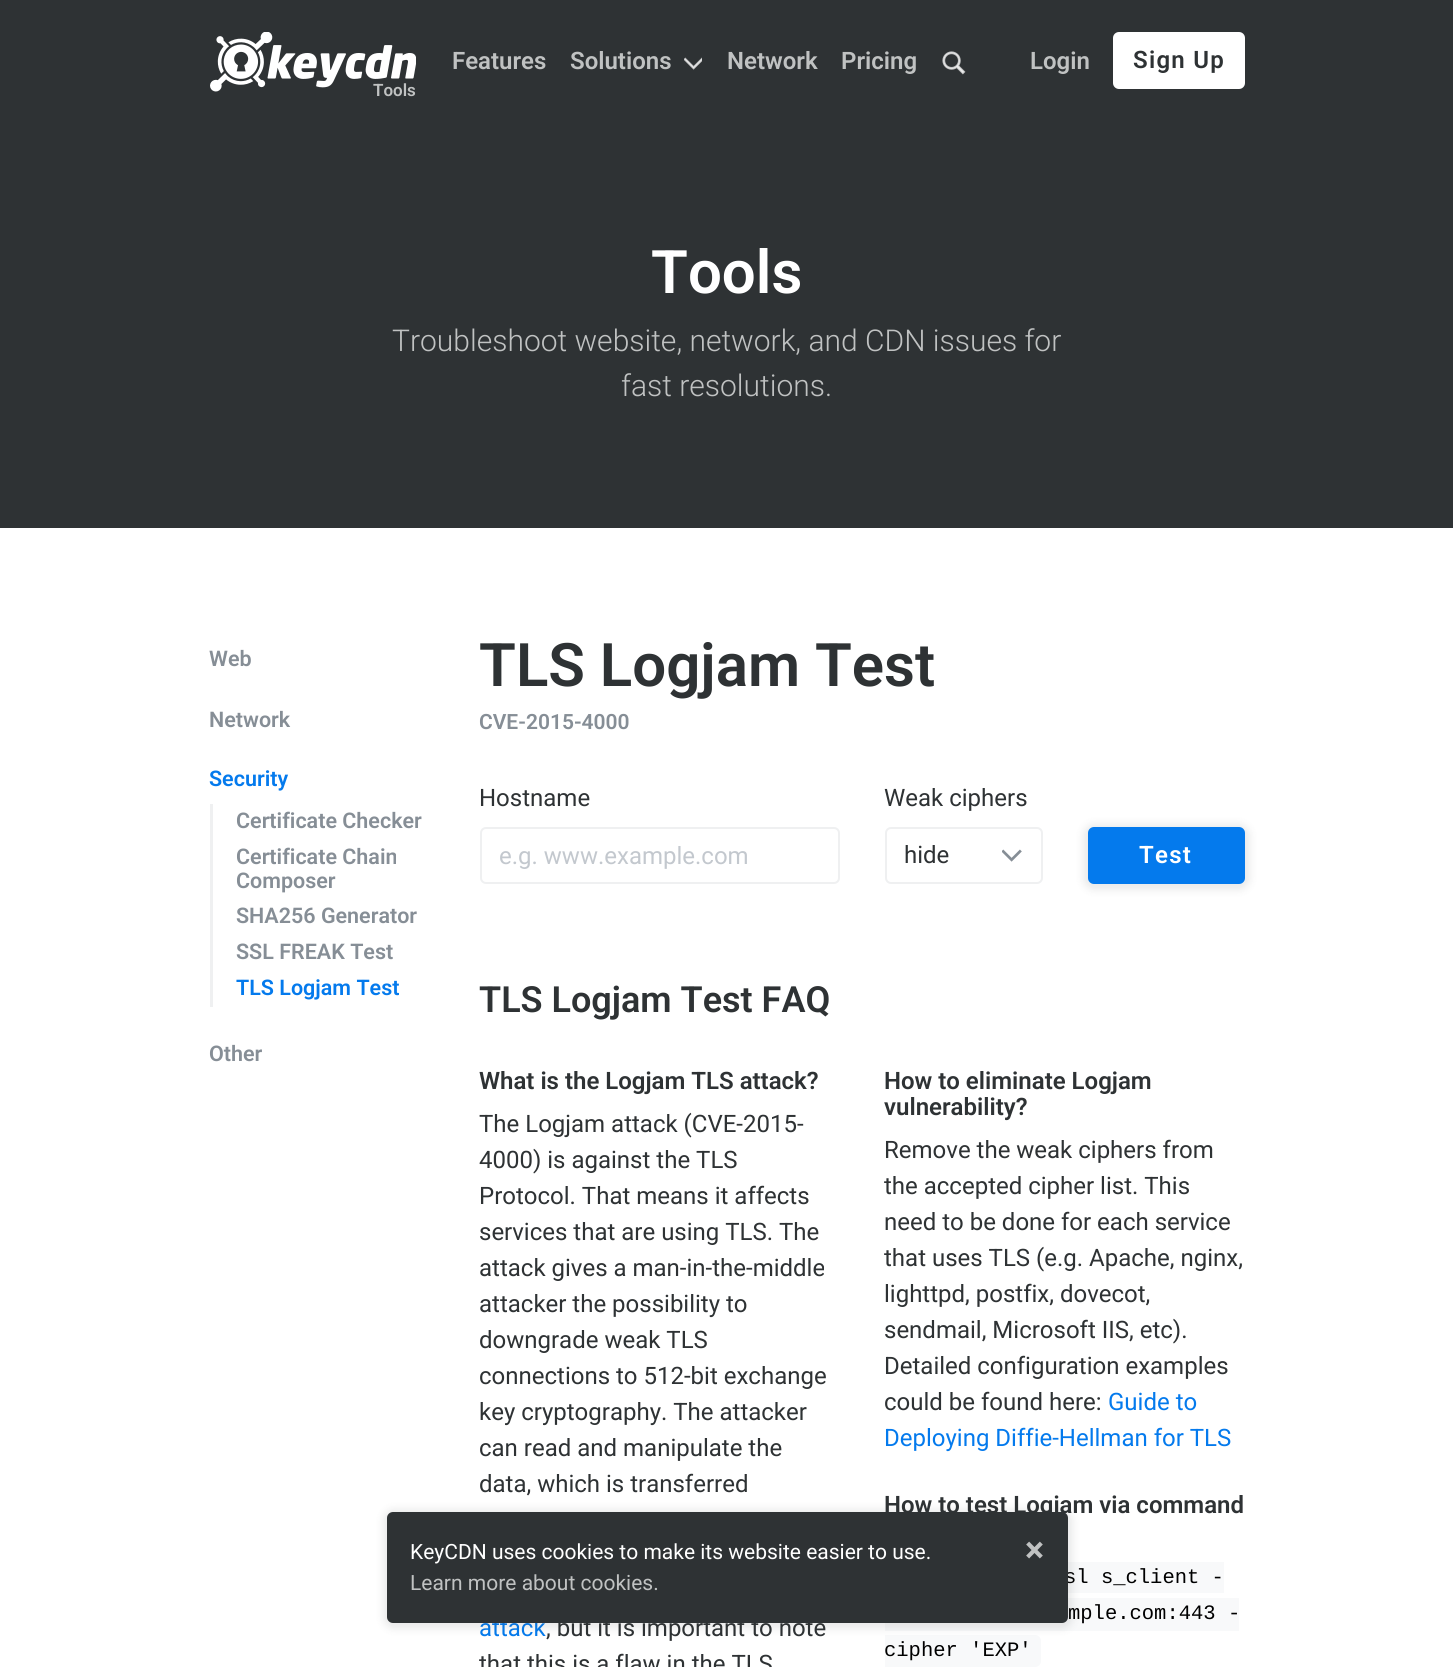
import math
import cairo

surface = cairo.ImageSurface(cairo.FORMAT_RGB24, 1453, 1667)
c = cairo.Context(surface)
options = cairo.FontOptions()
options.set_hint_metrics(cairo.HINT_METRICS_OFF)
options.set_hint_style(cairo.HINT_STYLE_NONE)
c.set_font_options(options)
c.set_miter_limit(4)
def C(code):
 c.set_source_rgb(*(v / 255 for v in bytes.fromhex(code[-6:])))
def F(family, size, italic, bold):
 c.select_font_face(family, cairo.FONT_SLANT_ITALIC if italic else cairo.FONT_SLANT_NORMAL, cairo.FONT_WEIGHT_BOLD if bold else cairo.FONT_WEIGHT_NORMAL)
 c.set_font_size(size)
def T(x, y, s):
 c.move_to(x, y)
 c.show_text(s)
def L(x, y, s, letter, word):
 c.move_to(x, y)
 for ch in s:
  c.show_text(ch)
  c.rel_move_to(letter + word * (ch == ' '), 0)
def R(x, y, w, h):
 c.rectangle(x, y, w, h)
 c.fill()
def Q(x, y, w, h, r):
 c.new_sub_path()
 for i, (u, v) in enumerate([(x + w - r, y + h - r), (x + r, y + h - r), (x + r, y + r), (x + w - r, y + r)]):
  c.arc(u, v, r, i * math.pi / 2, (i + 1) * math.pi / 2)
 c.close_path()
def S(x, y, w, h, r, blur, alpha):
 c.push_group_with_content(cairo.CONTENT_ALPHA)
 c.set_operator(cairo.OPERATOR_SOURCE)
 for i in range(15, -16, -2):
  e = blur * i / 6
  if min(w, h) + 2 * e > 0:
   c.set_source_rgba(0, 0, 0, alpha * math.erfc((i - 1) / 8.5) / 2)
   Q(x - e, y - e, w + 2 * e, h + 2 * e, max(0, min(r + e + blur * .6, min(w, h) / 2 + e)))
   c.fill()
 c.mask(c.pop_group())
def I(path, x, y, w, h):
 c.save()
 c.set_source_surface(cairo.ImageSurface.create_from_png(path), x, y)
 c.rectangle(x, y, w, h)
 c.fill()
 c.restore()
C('ffffff')
c.paint()
C('2e3234')
R(0,0,1453,528)
F('Roboto SemiBold',24,0,0)
C('c0c2c2')
T(452,69,'Features')
T(570,69,'Solutions')
I('1.png',684,57,18,13)
T(727,69,'Network')
T(841,69,'Pricing')
I('2.png',942,51,24,24)
T(1030,69,'Login')
C('ffffff')
Q(1114,33,130,55,5)
c.fill_preserve()
c.stroke()
C('2e3234')
L(1133,68,'Sign Up',1.25,0)
I('3.png',210,32,206,60)
F('Roboto SemiBold',17,0,0)
C('c0c2c2')
T(373,96,'Tools')
F('Roboto SemiBold',60,0,0)
C('ffffff')
T(651,293,'Tools')
F('Roboto Light',30,0,0)
C('c0c2c2')
T(392,351,'Troubleshoot website, network, and CDN issues for')
T(621,396,'fast resolutions.')
F('Roboto SemiBold',21.5,0,0)
C('868e96')
T(209,666,'Web')
T(209,727,'Network')
C('047aed')
T(209,786,'Security')
C('eff0f1')
R(210,804,3,203)
C('868e96')
T(236,828,'Certificate Checker')
T(236,864,'Certificate Chain')
T(236,888,'Composer')
T(236,923,'SHA256 Generator')
T(236,959,'SSL FREAK Test')
C('047aed')
T(236,995,'TLS Logjam Test')
C('868e96')
T(209,1061,'Other')
F('Roboto SemiBold',60,0,0)
C('2e3234')
T(479,686,'TLS Logjam Test')
F('Roboto SemiBold',21,0,0)
C('868e96')
T(479,729,'CVE-2015-4000')
F('Roboto',24,0,0)
C('2e3234')
T(479,806,'Hostname')
Q(481,828,358,55,5)
C('eff0f1')
c.stroke()
c.save()
c.rectangle(500,842,321,28)
c.clip()
C('c3c8ce')
T(499,864,'e.g. www.example.com')
c.restore()
C('2e3234')
T(884,806,'Weak ciphers')
I('4.png',1002,849,20,13)
Q(886,828,156,55,5)
C('eff0f1')
c.stroke()
C('2e3234')
T(904,863,'hide')
C('2e3234')
S(1083,824,167,66,11,4,.1)
C('047aed')
Q(1089,828,155,55,5)
c.fill_preserve()
c.stroke()
F('Roboto SemiBold',24,0,0)
C('ffffff')
L(1139,863,'Test',1.25,0)
F('Roboto SemiBold',36,0,0)
C('2e3234')
T(479,1012,'TLS Logjam Test FAQ')
F('Roboto SemiBold',24,0,0)
T(479,1089,'What is the Logjam TLS attack?')
F('Roboto',24,0,0)
T(479,1132,'The Logjam attack (CVE-2015-')
T(479,1168,'4000) is against the TLS')
T(479,1204,'Protocol. That means it affects')
T(479,1240,'services that are using TLS. The')
T(479,1276,'attack gives a man-in-the-middle')
T(479,1312,'attacker the possibility to')
T(479,1348,'downgrade weak TLS')
T(479,1384,'connections to 512-bit exchange')
T(479,1420,'key cryptography. The attacker')
T(479,1456,'can read and manipulate the')
T(479,1492,'data, which is transferred')
C('047aed')
T(479,1636,'attack')
C('2e3234')
T(546,1636,', but it is important to note')
T(479,1672,'that this is a flaw in the TLS')
F('Roboto SemiBold',24,0,0)
T(884,1089,'How to eliminate Logjam')
T(884,1115,'vulnerability?')
F('Roboto',24,0,0)
T(884,1158,'Remove the weak ciphers from')
T(884,1194,'the accepted cipher list. This')
T(884,1230,'need to be done for each service')
T(884,1266,'that uses TLS (e.g. Apache, nginx,')
T(884,1302,'lighttpd, postfix, dovecot,')
T(884,1338,'sendmail, Microsoft IIS, etc).')
T(884,1374,'Detailed configuration examples')
T(884,1410,'could be found here:')
C('047aed')
T(1108,1410,'Guide to')
T(884,1446,'Deploying Diffie-Hellman for TLS')
F('Roboto SemiBold',24,0,0)
C('2e3234')
T(884,1513,'How to test Logjam via command')
C('f8f9fa')
R(1068,1562,156,31)
F('Liberation Mono',20.5,0,0)
C('000000')
T(1064,1583,'sl s_client -')
C('f8f9fa')
R(885,1598,354,33)
C('000000')
T(1068,1619,'mple.com:443 -')
C('f8f9fa')
c.new_path()
c.move_to(885,1635)
c.line_to(1035,1635)
c.curve_to(1038.5,1635,1041,1637.5,1041,1641)
c.line_to(1041,1661)
c.curve_to(1041,1664.5,1038.5,1667,1035,1667)
c.line_to(885,1667)
c.close_path()
c.fill()
C('000000')
T(884,1656,'cipher \'EXP\'')
C('2e3234')
S(383,1509,690,120,11,4,.1)
C('2e3234')
Q(387,1512,681,111,6)
c.fill()
F('Roboto',21,0,0)
C('ffffff')
T(410,1559,'KeyCDN uses cookies to make its website easier to use.')
F('Roboto',36,0,1)
C('c0c2c2')
T(1025,1562,'×')
F('Roboto',21,0,0)
T(410,1590,'Learn more about cookies.')
surface.write_to_png('o.png')
